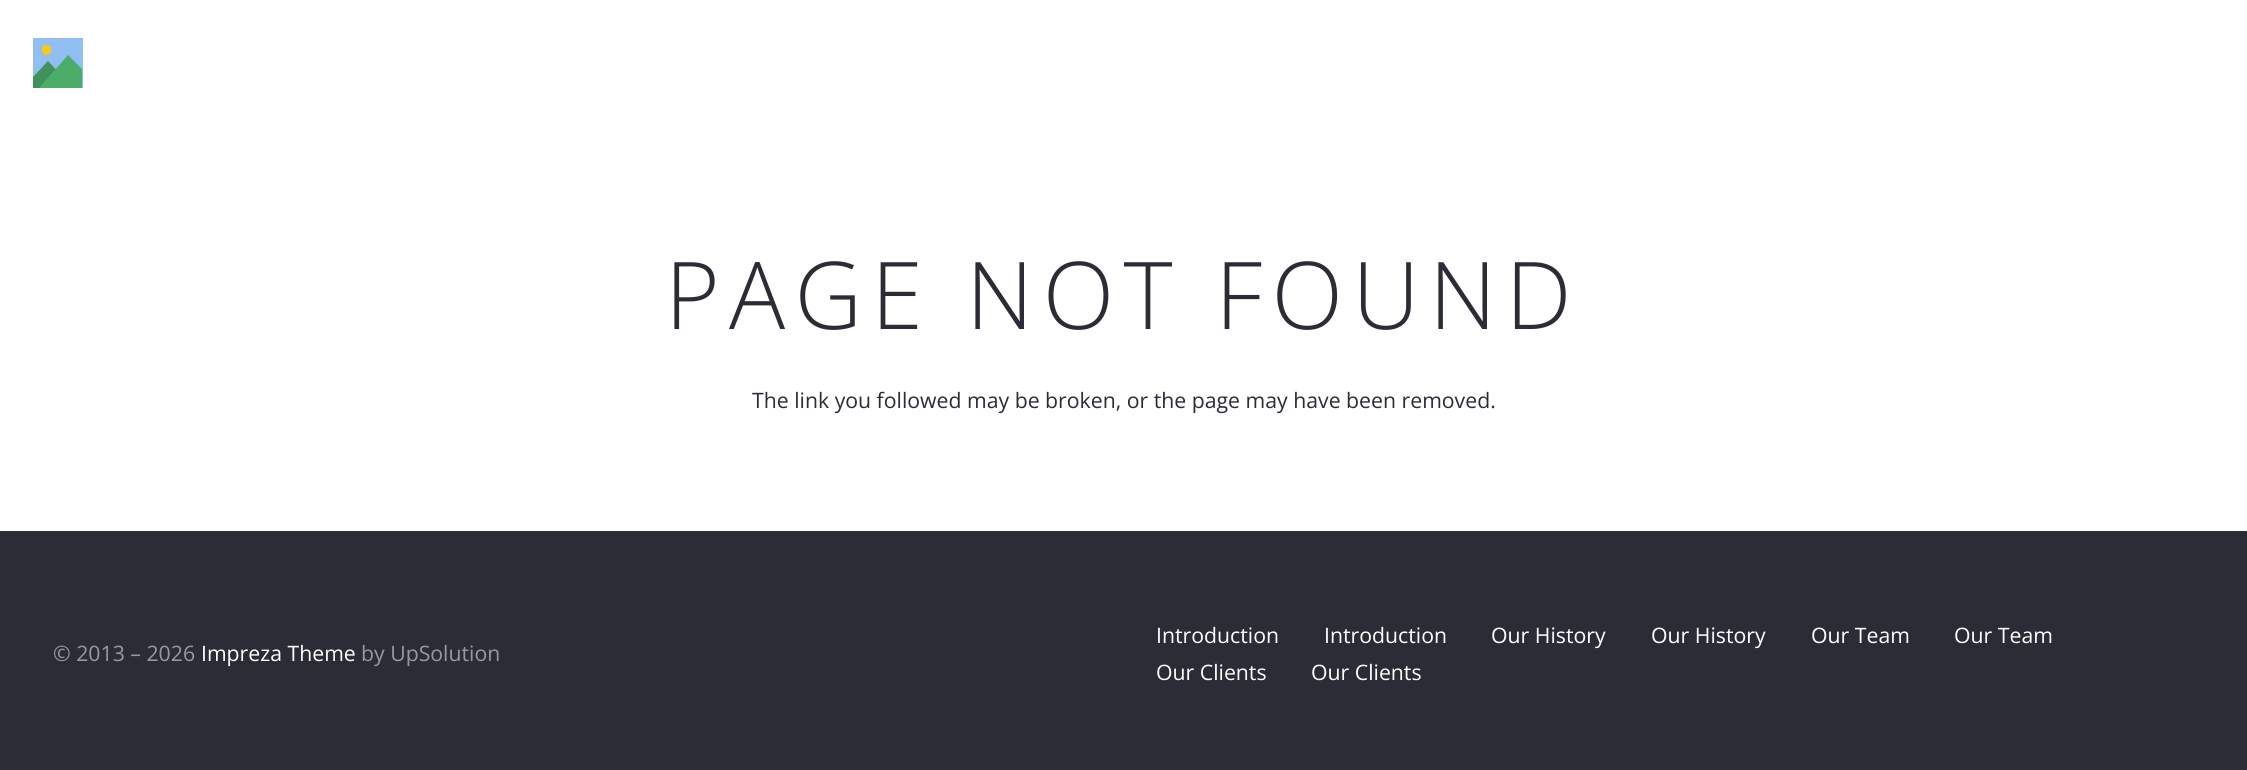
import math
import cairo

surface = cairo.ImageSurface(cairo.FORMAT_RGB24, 2247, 770)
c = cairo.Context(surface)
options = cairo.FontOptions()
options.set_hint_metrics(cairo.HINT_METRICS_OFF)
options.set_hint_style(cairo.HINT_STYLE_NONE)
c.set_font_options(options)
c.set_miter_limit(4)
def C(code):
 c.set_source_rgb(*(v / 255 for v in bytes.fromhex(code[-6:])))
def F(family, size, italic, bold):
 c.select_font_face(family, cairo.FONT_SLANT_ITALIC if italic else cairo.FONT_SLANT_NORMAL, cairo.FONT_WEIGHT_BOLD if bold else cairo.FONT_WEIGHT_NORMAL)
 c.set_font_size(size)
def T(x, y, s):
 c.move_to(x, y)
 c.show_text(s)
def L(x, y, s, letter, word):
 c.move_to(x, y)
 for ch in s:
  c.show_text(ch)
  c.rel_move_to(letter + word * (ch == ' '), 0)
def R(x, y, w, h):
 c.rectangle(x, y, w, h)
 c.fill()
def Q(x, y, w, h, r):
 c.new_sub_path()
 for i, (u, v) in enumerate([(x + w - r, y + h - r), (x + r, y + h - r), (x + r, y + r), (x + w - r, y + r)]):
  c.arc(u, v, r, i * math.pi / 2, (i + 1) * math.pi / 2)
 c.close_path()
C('ffffff')
c.paint()
C('91bff4')
R(33,38,50,50)
C('ffc90f')
Q(42,45,9,10,4.5)
c.fill()
c.save()
c.rectangle(33,38,50,50)
c.clip()
C('40915a')
c.new_path()
c.move_to(73,88)
c.line_to(32,88)
c.line_to(32,78)
c.line_to(48,61)
c.close_path()
c.fill()
c.restore()
C('4cad6b')
c.new_path()
c.move_to(82,69)
c.line_to(82,88)
c.line_to(39,88)
c.line_to(68,55)
c.close_path()
c.fill()
F('Open Sans Light',93.5,0,0)
C('2b2c36')
L(665,329,'PAGE NOT FOUND',9.3,0)
F('Open Sans',21.25,0,0)
T(752,408,'The link you followed may be broken, or the page may have been removed.')
R(0,531,2247,239)
C('9698a3')
T(53,661,'© 2013 – 2026')
C('ffffff')
T(201,661,'Impreza Theme')
C('9698a3')
T(361,661,'by UpSolution')
C('ffffff')
T(1156,643,'Introduction')
T(1324,643,'Introduction')
T(1491,643,'Our History')
T(1651,643,'Our History')
T(1811,643,'Our Team')
T(1954,643,'Our Team')
T(1156,680,'Our Clients')
T(1311,680,'Our Clients')
surface.write_to_png('o.png')
